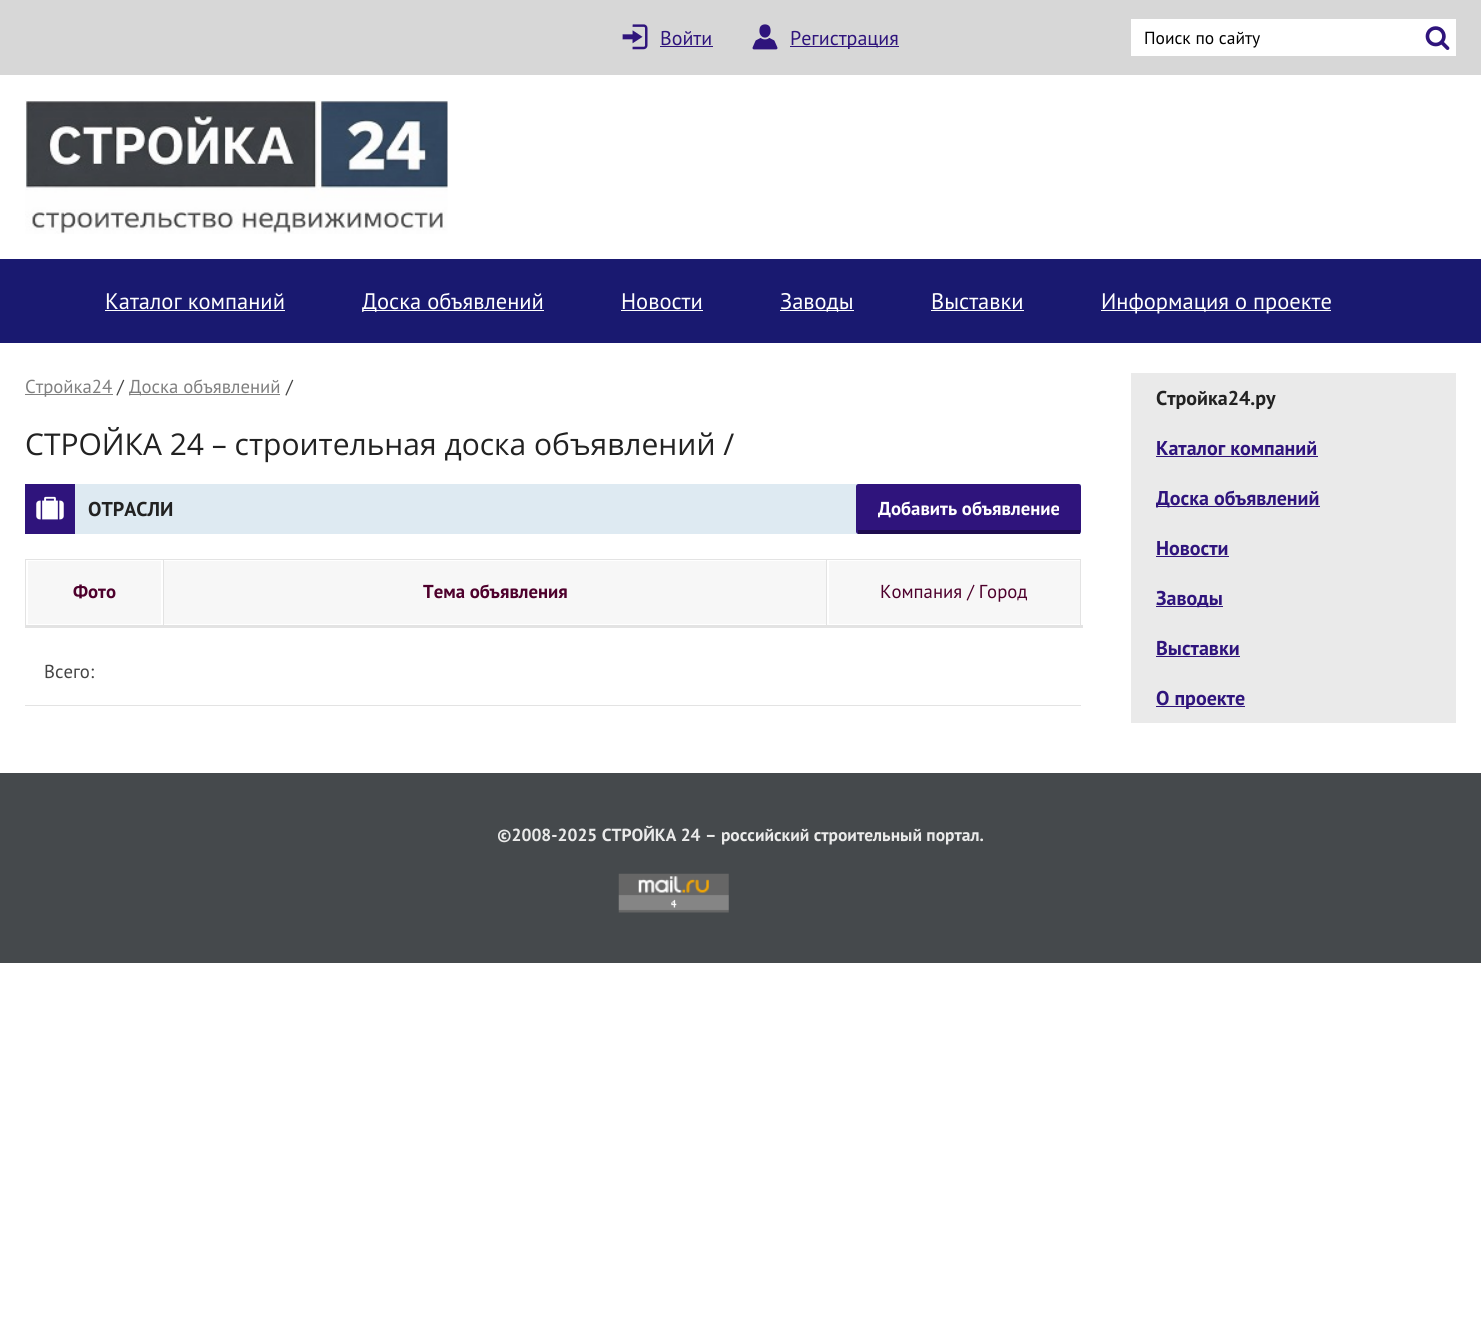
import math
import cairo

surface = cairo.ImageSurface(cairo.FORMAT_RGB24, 1481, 1328)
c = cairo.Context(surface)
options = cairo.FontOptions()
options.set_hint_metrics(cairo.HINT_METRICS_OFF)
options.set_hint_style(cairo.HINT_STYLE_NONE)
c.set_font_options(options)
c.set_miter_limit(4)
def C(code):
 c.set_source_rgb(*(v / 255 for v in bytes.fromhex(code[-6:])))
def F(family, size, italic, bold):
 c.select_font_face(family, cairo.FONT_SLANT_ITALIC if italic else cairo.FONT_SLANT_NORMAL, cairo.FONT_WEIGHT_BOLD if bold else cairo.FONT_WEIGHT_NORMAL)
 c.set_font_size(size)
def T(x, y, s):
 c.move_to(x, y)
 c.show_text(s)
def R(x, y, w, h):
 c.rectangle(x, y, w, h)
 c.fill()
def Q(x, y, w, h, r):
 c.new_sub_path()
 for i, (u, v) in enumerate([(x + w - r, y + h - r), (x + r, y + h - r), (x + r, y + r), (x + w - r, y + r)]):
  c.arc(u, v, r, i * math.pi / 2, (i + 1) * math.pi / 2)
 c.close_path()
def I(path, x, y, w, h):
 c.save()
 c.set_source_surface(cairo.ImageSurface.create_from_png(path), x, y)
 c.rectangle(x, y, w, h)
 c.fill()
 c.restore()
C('ffffff')
c.paint()
C('d7d7d7')
R(0,0,1481,75)
I('1.png',622,24,26,26)
F('PT Sans',20,0,0)
C('2f147c')
T(660,45,'Войти')
R(660,46,53,1)
I('2.png',752,24,26,26)
R(790,46,109,1)
T(790,45,'Регистрация')
C('ffffff')
R(1131,19,325,37)
F('PT Sans',17.5,0,0)
C('000000')
T(1144,44,'Поиск по сайту')
I('3.png',1425,26,25,24)
I('4.png',25,100,423,134)
C('191970')
R(0,259,1481,84)
F('PT Sans',22.5,0,0)
C('ffffff')
T(105,309,'Каталог компаний')
R(105,310,180,1)
R(363,310,181,1)
T(362,309,'Доска объявлений')
T(621,309,'Новости')
R(621,310,82,1)
R(780,310,74,1)
T(780,309,'Заводы')
T(931,309,'Выставки')
R(931,310,93,1)
R(1101,310,230,1)
T(1101,309,'Информация о проекте')
C('808080')
R(25,394,88,1)
F('PT Sans',18.75,0,0)
T(25,393,'Стройка24')
C('444444')
T(117,393,'/')
C('808080')
R(129,394,151,1)
T(129,393,'Доска объявлений')
C('444444')
T(286,393,'/')
F('Open Sans',30,0,0)
C('222222')
T(25,455,'СТРОЙКА 24 – строительная доска объявлений /')
C('deeaf2')
R(75,484,1006,50)
C('2f147c')
R(25,484,50,50)
I('5.png',36,496,28,24)
F('PT Sans',20,0,1)
C('222222')
T(88,516,'ОТРАСЛИ')
C('2f147c')
Q(856,484,225,50,2.5)
c.fill()
C('1e0d4f')
R(858,530,222,4)
F('PT Sans',18.75,0,1)
C('ffffff')
T(878,515,'Добавить объявление')
C('f7f7f7')
R(28,561,133,63)
C('e3e3e3')
R(826,559,255,1)
R(826,559,1,67)
R(163,559,665,1)
R(163,559,1,67)
R(25,559,139,1)
R(25,559,1,67)
C('4e002c')
T(73,598,'Фото')
C('f7f7f7')
R(164,561,662,63)
C('4e002c')
T(423,598,'Тема объявления')
C('f7f7f7')
R(829,561,251,63)
C('e3e3e3')
R(1080,559,1,67)
R(25,625,1058,3)
F('PT Sans',18.75,0,0)
C('4e002c')
T(880,598,'Компания / Город')
C('e3e3e3')
R(25,705,1056,1)
C('444444')
T(44,678,'Всего:')
C('eaeaea')
R(1131,373,325,350)
F('PT Sans',20,0,1)
C('222222')
T(1156,405,'Стройка24.ру')
C('2f147c')
T(1156,455,'Каталог компаний')
R(1156,456,162,1)
R(1156,506,164,1)
T(1156,505,'Доска объявлений')
T(1156,555,'Новости')
R(1156,556,73,1)
R(1156,606,67,1)
T(1156,605,'Заводы')
T(1156,655,'Выставки')
R(1156,656,84,1)
R(1156,706,89,1)
T(1156,705,'О проекте')
C('45494c')
R(0,773,1481,190)
F('PT Sans',17.5,0,1)
C('eaeaea')
T(497,841,'©2008-2025 СТРОЙКА 24 – российский строительный портал.')
I('6.png',618,873,111,40)
surface.write_to_png('o.png')
